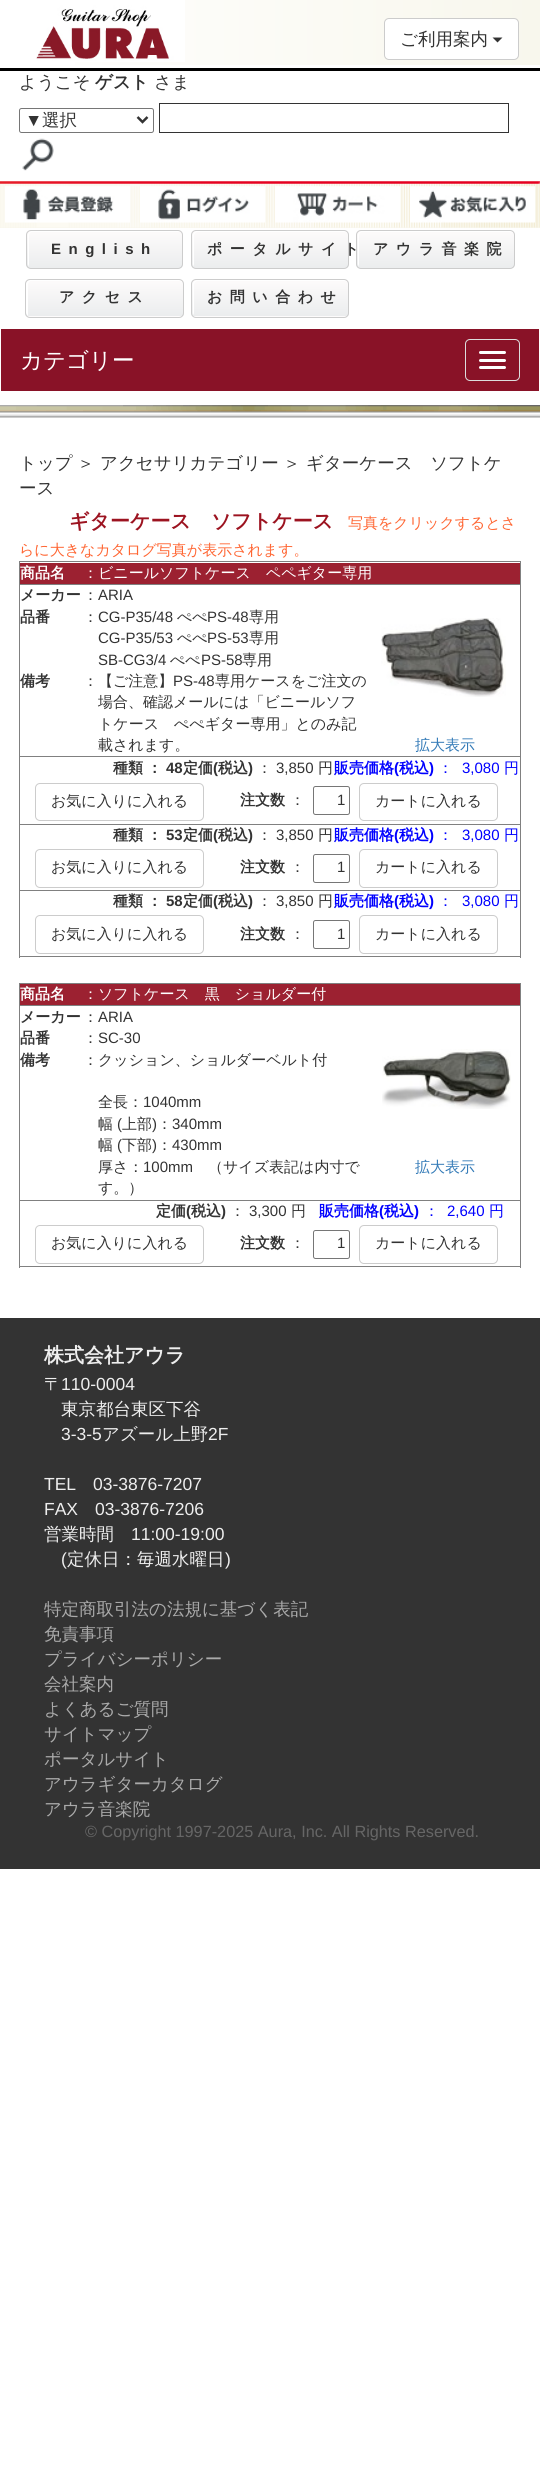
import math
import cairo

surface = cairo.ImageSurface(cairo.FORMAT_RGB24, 540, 2492)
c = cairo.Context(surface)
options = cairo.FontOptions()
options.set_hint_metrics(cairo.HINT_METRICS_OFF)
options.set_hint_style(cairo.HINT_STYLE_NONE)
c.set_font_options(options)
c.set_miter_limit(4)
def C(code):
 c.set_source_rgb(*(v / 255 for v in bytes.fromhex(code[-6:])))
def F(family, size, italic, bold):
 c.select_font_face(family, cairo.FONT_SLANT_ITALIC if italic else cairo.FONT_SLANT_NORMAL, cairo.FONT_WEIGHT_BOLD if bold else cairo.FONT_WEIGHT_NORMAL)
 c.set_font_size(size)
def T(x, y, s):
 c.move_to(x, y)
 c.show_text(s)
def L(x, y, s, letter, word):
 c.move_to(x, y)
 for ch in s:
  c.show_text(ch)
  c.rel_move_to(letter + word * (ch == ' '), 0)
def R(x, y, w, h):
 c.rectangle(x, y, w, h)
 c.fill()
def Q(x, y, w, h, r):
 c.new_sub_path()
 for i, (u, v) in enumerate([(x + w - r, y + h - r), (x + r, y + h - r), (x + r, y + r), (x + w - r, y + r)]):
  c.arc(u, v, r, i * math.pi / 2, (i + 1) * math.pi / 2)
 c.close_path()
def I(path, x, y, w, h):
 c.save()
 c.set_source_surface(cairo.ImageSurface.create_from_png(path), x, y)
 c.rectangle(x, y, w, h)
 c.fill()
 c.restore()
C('ffffff')
c.paint()
gradient = cairo.LinearGradient(540,0,0,0)
gradient.add_color_stop_rgba(0,0.973,0.969,0.929,1)
gradient.add_color_stop_rgba(1,1,1,1,1)
c.set_source(gradient)
R(75,0,465,65)
I('1.png',36,0,149,62)
C('ffffff')
Q(384.5,18.5,134,41,4.5)
c.fill_preserve()
C('cccccc')
c.set_line_width(1)
c.stroke()
F('WenQuanYi Zen Hei Medium',17.5,0,0)
C('333333')
T(400,45,'ご利用案内')
c.new_path()
c.move_to(492.5,37.5)
c.line_to(502.5,37.5)
c.line_to(497.5,42.5)
c.close_path()
c.fill()
C('000000')
R(0,68,540,3)
C('333333')
T(19,88,'ようこそ')
F('WenQuanYi Zen Hei',17.5,0,1)
T(95,88,'ゲスト')
F('WenQuanYi Zen Hei Medium',17.5,0,0)
T(154,88,'さま')
Q(19.5,108.5,134,24,2)
C('767676')
c.stroke()
c.new_path()
c.move_to(137.5,117)
c.line_to(142.5,122)
c.line_to(147.5,117)
C('333333')
c.set_line_width(2.5)
c.stroke()
F('Liberation Sans',17.5,0,0)
T(25,126,'▼')
F('WenQuanYi Zen Hei Medium',17.5,0,0)
T(42,126,'選択')
c.rectangle(159.5,103.5,349,29)
c.set_line_width(1)
c.stroke()
I('2.png',22,138,32,33)
C('f8f7ed')
R(0,181,540,47)
I('3.png',0,181,540,47)
I('4.png',5,186,125,37)
I('5.png',140,186,125,37)
I('6.png',275,186,125,37)
I('7.png',410,186,125,37)
c.save()
Q(26,230,157,39,5)
c.clip()
gradient = cairo.LinearGradient(104,231,104,268)
gradient.add_color_stop_rgba(0,0.992,0.984,0.984,1)
gradient.add_color_stop_rgba(1,0.922,0.929,0.933,1)
c.set_source(gradient)
R(26,231,157,37)
c.restore()
C('ffffff')
c.new_path()
c.move_to(32,232)
c.line_to(180,232)
c.curve_to(179,231,178,231,177,231)
c.line_to(32,231)
c.curve_to(30,231,28,233,28,235)
c.line_to(28,264)
c.curve_to(28,265,29,266,29,267)
c.line_to(29,241)
c.curve_to(29,239,28,232,32,232)
c.close_path()
c.fill()
Q(26.5,230.5,156,38,4.5)
C('cccccc')
c.stroke()
F('Liberation Sans',15,0,1)
C('333333')
L(51,254,'English',7.5,0)
c.save()
Q(191,230,158,39,5)
c.clip()
gradient = cairo.LinearGradient(270,231,270,268)
gradient.add_color_stop_rgba(0,0.992,0.984,0.984,1)
gradient.add_color_stop_rgba(1,0.922,0.929,0.933,1)
c.set_source(gradient)
R(191,231,158,37)
c.restore()
C('ffffff')
c.new_path()
c.move_to(198,232)
c.line_to(345,232)
c.line_to(347,233)
c.curve_to(347,232,345,231,344,231)
c.line_to(197,231)
c.curve_to(195,231,193,233,193,235)
c.line_to(193,264)
c.curve_to(193,265,194,266,194,267)
c.line_to(194,241)
c.curve_to(194,237,193,232,198,232)
c.close_path()
c.fill()
Q(191.5,230.5,157,38,4.5)
C('cccccc')
c.stroke()
F('WenQuanYi Zen Hei',15,0,1)
C('333333')
L(207,254,'ポータルサイト',7.5,0)
c.save()
Q(356,230,159,39,5)
c.clip()
gradient = cairo.LinearGradient(436,231,436,268)
gradient.add_color_stop_rgba(0,0.992,0.984,0.984,1)
gradient.add_color_stop_rgba(1,0.922,0.929,0.933,1)
c.set_source(gradient)
R(356,231,159,37)
c.restore()
C('ffffff')
c.new_path()
c.move_to(362,232)
c.line_to(511,232)
c.line_to(513,233)
c.curve_to(513,232,511,231,510,231)
c.line_to(362,231)
c.curve_to(360,231,358,233,358,235)
c.line_to(358,264)
c.curve_to(358,265,359,266,359,267)
c.line_to(359,241)
c.curve_to(359,239,358,232,362,232)
c.close_path()
c.fill()
Q(356.5,230.5,158,38,4.5)
C('cccccc')
c.stroke()
C('333333')
L(373,254,'アウラ音楽院',7.5,0)
c.save()
Q(25,279,159,39,5)
c.clip()
gradient = cairo.LinearGradient(104,280,104,316)
gradient.add_color_stop_rgba(0,0.992,0.984,0.984,1)
gradient.add_color_stop_rgba(1,0.922,0.929,0.933,1)
c.set_source(gradient)
R(25,280,159,36)
gradient = cairo.LinearGradient(104,316,104,353)
gradient.add_color_stop_rgba(0,0.992,0.984,0.984,1)
gradient.add_color_stop_rgba(1,0.922,0.929,0.933,1)
c.set_source(gradient)
R(25,316,159,2)
c.restore()
C('ffffff')
c.new_path()
c.move_to(31,281)
c.line_to(180,281)
c.line_to(182,282)
c.curve_to(182,281,180,280,179,280)
c.line_to(30,280)
c.curve_to(28,280,26,282,26,284)
c.line_to(26,312)
c.curve_to(26,314,27,315,28,316)
c.line_to(28,290)
c.curve_to(28,288,27,281,31,281)
c.close_path()
c.fill()
Q(25.5,279.5,158,38,4.5)
C('cccccc')
c.stroke()
C('333333')
L(59,302,'アクセス',7.5,0)
c.save()
Q(191,279,158,39,5)
c.clip()
gradient = cairo.LinearGradient(270,280,270,316)
gradient.add_color_stop_rgba(0,0.992,0.984,0.984,1)
gradient.add_color_stop_rgba(1,0.922,0.929,0.933,1)
c.set_source(gradient)
R(191,280,158,36)
gradient = cairo.LinearGradient(270,316,270,353)
gradient.add_color_stop_rgba(0,0.992,0.984,0.984,1)
gradient.add_color_stop_rgba(1,0.922,0.929,0.933,1)
c.set_source(gradient)
R(191,316,158,2)
c.restore()
C('ffffff')
c.new_path()
c.move_to(198,281)
c.line_to(345,281)
c.line_to(347,282)
c.curve_to(347,281,345,280,344,280)
c.line_to(197,280)
c.curve_to(195,280,193,282,193,284)
c.line_to(193,312)
c.curve_to(193,313,193,314,194,315)
c.line_to(194,290)
c.curve_to(194,286,193,281,198,281)
c.close_path()
c.fill()
Q(191.5,279.5,157,38,4.5)
C('cccccc')
c.stroke()
C('333333')
L(207,302,'お問い合わせ',7.5,0)
C('891227')
R(1,329,538,62)
F('WenQuanYi Zen Hei Medium',22.5,0,0)
C('ffffff')
T(20,368,'カテゴリー')
Q(465.5,339.5,54,41,4.5)
C('dddddd')
c.stroke()
C('ffffff')
Q(479,351,27,3,1.5)
c.fill()
Q(479,359,27,3,1.5)
c.fill()
Q(479,366,27,3,1.5)
c.fill()
I('8.png',0,405,540,13)
F('WenQuanYi Zen Hei Medium',17.5,0,0)
C('333333')
T(19,469,'トップ')
T(77,469,'＞')
T(100,469,'アクセサリカテゴリー')
T(283,469,'＞')
T(306,469,'ギターケース　ソフトケ')
T(19,494,'ース')
F('WenQuanYi Zen Hei',20,0,1)
C('9c1320')
T(69,528,'ギターケース　ソフトケース')
F('WenQuanYi Zen Hei Medium',15,0,0)
C('ff6633')
T(348,528,'写真をクリックするとさ')
T(19,555,'らに大きなカタログ写真が表示されます。')
C('808080')
R(19,561,502,1)
R(520,561,1,397)
R(19,956,502,1)
R(19,561,1,397)
C('9c2131')
R(20,563,500,21)
F('WenQuanYi Zen Hei',15,0,1)
C('ffffff')
T(20,578,'商品名')
F('WenQuanYi Zen Hei Medium',15,0,0)
T(83,578,'：ビニールソフトケース　ペペギター専用')
C('808080')
R(19,584,502,1)
F('WenQuanYi Zen Hei',15,0,1)
C('333333')
T(20,600,'メーカー')
F('WenQuanYi Zen Hei Medium',15,0,0)
T(83,600,'：')
F('Liberation Sans',15,0,0)
T(98,600,'ARIA')
F('WenQuanYi Zen Hei',15,0,1)
T(20,622,'品番')
F('WenQuanYi Zen Hei Medium',15,0,0)
T(83,622,'：')
F('Liberation Sans',15,0,0)
T(98,622,'CG-P35/48')
F('WenQuanYi Zen Hei Medium',15,0,0)
T(177,622,'ぺぺ')
F('Liberation Sans',15,0,0)
T(207,622,'PS-48')
F('WenQuanYi Zen Hei Medium',15,0,0)
T(249,622,'専用')
F('Liberation Sans',15,0,0)
T(98,643,'CG-P35/53')
F('WenQuanYi Zen Hei Medium',15,0,0)
T(177,643,'ぺぺ')
F('Liberation Sans',15,0,0)
T(207,643,'PS-53')
F('WenQuanYi Zen Hei Medium',15,0,0)
T(249,643,'専用')
F('Liberation Sans',15,0,0)
T(98,665,'SB-CG3/4')
F('WenQuanYi Zen Hei Medium',15,0,0)
T(170,665,'ぺぺ')
F('Liberation Sans',15,0,0)
T(201,665,'PS-58')
F('WenQuanYi Zen Hei Medium',15,0,0)
T(242,665,'専用')
F('WenQuanYi Zen Hei',15,0,1)
T(20,686,'備考')
F('WenQuanYi Zen Hei Medium',15,0,0)
T(83,686,'：【ご注意】')
F('Liberation Sans',15,0,0)
T(173,686,'PS-48')
F('WenQuanYi Zen Hei Medium',15,0,0)
T(215,686,'専用ケースをご注文の')
T(98,707,'場合、確認メールには「ビニールソフ')
T(98,729,'トケース　ぺぺギター専用」とのみ記')
T(98,750,'載されます。')
I('9.png',381,618,125,79)
C('337ab7')
T(415,750,'拡大表示')
C('808080')
R(19,756,502,1)
F('WenQuanYi Zen Hei',15,0,1)
C('333333')
T(113,773,'種類')
T(147,773,'：')
F('Liberation Sans',15,0,1)
T(166,773,'48')
F('WenQuanYi Zen Hei',15,0,1)
T(183,773,'定価')
F('Liberation Sans',15,0,1)
T(213,773,'(')
F('WenQuanYi Zen Hei',15,0,1)
T(218,773,'税込')
F('Liberation Sans',15,0,1)
T(248,773,')')
F('WenQuanYi Zen Hei Medium',15,0,0)
T(257,773,'：')
F('Liberation Sans',15,0,0)
T(276,773,'3,850')
F('WenQuanYi Zen Hei Medium',15,0,0)
T(318,773,'円')
F('WenQuanYi Zen Hei',15,0,1)
C('0000ff')
T(334,773,'販売価格')
F('Liberation Sans',15,0,1)
T(394,773,'(')
F('WenQuanYi Zen Hei',15,0,1)
T(399,773,'税込')
F('Liberation Sans',15,0,1)
T(429,773,')')
F('WenQuanYi Zen Hei Medium',15,0,0)
T(438,773,'：')
F('Liberation Sans',15,0,0)
T(462,773,'3,080')
F('WenQuanYi Zen Hei Medium',15,0,0)
T(504,773,'円')
Q(35.5,783.5,168,37,4.5)
C('cccccc')
c.stroke()
C('333333')
T(51,806,'お気に入りに入れる')
F('WenQuanYi Zen Hei',15,0,1)
T(240,805,'注文数')
F('WenQuanYi Zen Hei Medium',15,0,0)
T(290,805,'：')
Q(313.5,786.5,36,28,2)
C('767676')
c.stroke()
F('Liberation Sans',15,0,0)
C('333333')
T(337,805,'1')
Q(359.5,783.5,138,37,4.5)
C('cccccc')
c.stroke()
F('WenQuanYi Zen Hei Medium',15,0,0)
C('333333')
T(375,806,'カートに入れる')
C('808080')
R(19,824,502,1)
F('WenQuanYi Zen Hei',15,0,1)
C('333333')
T(113,840,'種類')
T(147,840,'：')
F('Liberation Sans',15,0,1)
T(166,840,'53')
F('WenQuanYi Zen Hei',15,0,1)
T(183,840,'定価')
F('Liberation Sans',15,0,1)
T(213,840,'(')
F('WenQuanYi Zen Hei',15,0,1)
T(218,840,'税込')
F('Liberation Sans',15,0,1)
T(248,840,')')
F('WenQuanYi Zen Hei Medium',15,0,0)
T(257,840,'：')
F('Liberation Sans',15,0,0)
T(276,840,'3,850')
F('WenQuanYi Zen Hei Medium',15,0,0)
T(318,840,'円')
F('WenQuanYi Zen Hei',15,0,1)
C('0000ff')
T(334,840,'販売価格')
F('Liberation Sans',15,0,1)
T(394,840,'(')
F('WenQuanYi Zen Hei',15,0,1)
T(399,840,'税込')
F('Liberation Sans',15,0,1)
T(429,840,')')
F('WenQuanYi Zen Hei Medium',15,0,0)
T(438,840,'：')
F('Liberation Sans',15,0,0)
T(462,840,'3,080')
F('WenQuanYi Zen Hei Medium',15,0,0)
T(504,840,'円')
Q(35.5,849.5,168,38,4.5)
C('cccccc')
c.stroke()
C('333333')
T(51,872,'お気に入りに入れる')
F('WenQuanYi Zen Hei',15,0,1)
T(240,872,'注文数')
F('WenQuanYi Zen Hei Medium',15,0,0)
T(290,872,'：')
Q(313.5,854.5,36,28,2)
C('767676')
c.stroke()
F('Liberation Sans',15,0,0)
C('333333')
T(337,872,'1')
Q(359.5,849.5,138,38,4.5)
C('cccccc')
c.stroke()
F('WenQuanYi Zen Hei Medium',15,0,0)
C('333333')
T(375,872,'カートに入れる')
C('808080')
R(19,890,502,1)
F('WenQuanYi Zen Hei',15,0,1)
C('333333')
T(113,906,'種類')
T(147,906,'：')
F('Liberation Sans',15,0,1)
T(166,906,'58')
F('WenQuanYi Zen Hei',15,0,1)
T(183,906,'定価')
F('Liberation Sans',15,0,1)
T(213,906,'(')
F('WenQuanYi Zen Hei',15,0,1)
T(218,906,'税込')
F('Liberation Sans',15,0,1)
T(248,906,')')
F('WenQuanYi Zen Hei Medium',15,0,0)
T(257,906,'：')
F('Liberation Sans',15,0,0)
T(276,906,'3,850')
F('WenQuanYi Zen Hei Medium',15,0,0)
T(318,906,'円')
F('WenQuanYi Zen Hei',15,0,1)
C('0000ff')
T(334,906,'販売価格')
F('Liberation Sans',15,0,1)
T(394,906,'(')
F('WenQuanYi Zen Hei',15,0,1)
T(399,906,'税込')
F('Liberation Sans',15,0,1)
T(429,906,')')
F('WenQuanYi Zen Hei Medium',15,0,0)
T(438,906,'：')
F('Liberation Sans',15,0,0)
T(462,906,'3,080')
F('WenQuanYi Zen Hei Medium',15,0,0)
T(504,906,'円')
Q(35.5,915.5,168,38,4.5)
C('cccccc')
c.stroke()
C('333333')
T(51,939,'お気に入りに入れる')
F('WenQuanYi Zen Hei',15,0,1)
T(240,939,'注文数')
F('WenQuanYi Zen Hei Medium',15,0,0)
T(290,939,'：')
Q(313.5,920.5,36,28,2)
C('767676')
c.stroke()
F('Liberation Sans',15,0,0)
C('333333')
T(337,939,'1')
Q(359.5,915.5,138,38,4.5)
C('cccccc')
c.stroke()
F('WenQuanYi Zen Hei Medium',15,0,0)
C('333333')
T(375,939,'カートに入れる')
C('808080')
R(19,983,502,1)
R(520,983,1,285)
R(19,1266,502,1)
R(19,983,1,285)
C('9c2131')
R(20,984,500,21)
F('WenQuanYi Zen Hei',15,0,1)
C('ffffff')
T(20,999,'商品名')
F('WenQuanYi Zen Hei Medium',15,0,0)
T(83,999,'：ソフトケース　黒　ショルダー付')
C('808080')
R(19,1005,502,1)
F('WenQuanYi Zen Hei',15,0,1)
C('333333')
T(20,1022,'メーカー')
F('WenQuanYi Zen Hei Medium',15,0,0)
T(83,1022,'：')
F('Liberation Sans',15,0,0)
T(98,1022,'ARIA')
F('WenQuanYi Zen Hei',15,0,1)
T(20,1043,'品番')
F('WenQuanYi Zen Hei Medium',15,0,0)
T(83,1043,'：')
F('Liberation Sans',15,0,0)
T(98,1043,'SC-30')
F('WenQuanYi Zen Hei',15,0,1)
T(20,1065,'備考')
F('WenQuanYi Zen Hei Medium',15,0,0)
T(83,1065,'：クッション、ショルダーベルト付')
T(98,1107,'全長：')
F('Liberation Sans',15,0,0)
T(143,1107,'1040mm')
F('WenQuanYi Zen Hei Medium',15,0,0)
T(98,1129,'幅')
F('Liberation Sans',15,0,0)
T(117,1129,'(')
F('WenQuanYi Zen Hei Medium',15,0,0)
T(122,1129,'上部')
F('Liberation Sans',15,0,0)
T(152,1129,')')
F('WenQuanYi Zen Hei Medium',15,0,0)
T(157,1129,'：')
F('Liberation Sans',15,0,0)
T(172,1129,'340mm')
F('WenQuanYi Zen Hei Medium',15,0,0)
T(98,1150,'幅')
F('Liberation Sans',15,0,0)
T(117,1150,'(')
F('WenQuanYi Zen Hei Medium',15,0,0)
T(122,1150,'下部')
F('Liberation Sans',15,0,0)
T(152,1150,')')
F('WenQuanYi Zen Hei Medium',15,0,0)
T(157,1150,'：')
F('Liberation Sans',15,0,0)
T(172,1150,'430mm')
F('WenQuanYi Zen Hei Medium',15,0,0)
T(98,1172,'厚さ：')
F('Liberation Sans',15,0,0)
T(143,1172,'100mm')
F('WenQuanYi Zen Hei Medium',15,0,0)
T(208,1172,'（サイズ表記は内寸で')
T(98,1193,'す。）')
I('10.png',382,1049,129,60)
C('337ab7')
T(415,1172,'拡大表示')
C('808080')
R(19,1200,502,1)
F('WenQuanYi Zen Hei',15,0,1)
C('333333')
T(156,1216,'定価')
F('Liberation Sans',15,0,1)
T(186,1216,'(')
F('WenQuanYi Zen Hei',15,0,1)
T(191,1216,'税込')
F('Liberation Sans',15,0,1)
T(221,1216,')')
F('WenQuanYi Zen Hei Medium',15,0,0)
T(230,1216,'：')
F('Liberation Sans',15,0,0)
T(249,1216,'3,300')
F('WenQuanYi Zen Hei Medium',15,0,0)
T(291,1216,'円')
F('WenQuanYi Zen Hei',15,0,1)
C('0000ff')
T(319,1216,'販売価格')
F('Liberation Sans',15,0,1)
T(379,1216,'(')
F('WenQuanYi Zen Hei',15,0,1)
T(384,1216,'税込')
F('Liberation Sans',15,0,1)
T(414,1216,')')
F('WenQuanYi Zen Hei Medium',15,0,0)
T(424,1216,'：')
F('Liberation Sans',15,0,0)
T(447,1216,'2,640')
F('WenQuanYi Zen Hei Medium',15,0,0)
T(489,1216,'円')
Q(35.5,1225.5,168,38,4.5)
C('cccccc')
c.stroke()
C('333333')
T(51,1248,'お気に入りに入れる')
F('WenQuanYi Zen Hei',15,0,1)
T(240,1248,'注文数')
F('WenQuanYi Zen Hei Medium',15,0,0)
T(290,1248,'：')
Q(313.5,1230.5,36,28,2)
C('767676')
c.stroke()
F('Liberation Sans',15,0,0)
C('333333')
T(337,1248,'1')
Q(359.5,1225.5,138,38,4.5)
C('cccccc')
c.stroke()
F('WenQuanYi Zen Hei Medium',15,0,0)
C('333333')
T(375,1248,'カートに入れる')
R(0,1318,540,551)
F('WenQuanYi Zen Hei',20,0,1)
C('eeeeee')
T(44,1362,'株式会社アウラ')
F('WenQuanYi Zen Hei Medium',17.5,0,0)
T(44,1390,'〒')
F('Liberation Sans',17.5,0,0)
T(61,1390,'110-0004')
F('WenQuanYi Zen Hei Medium',17.5,0,0)
T(61,1415,'東京都台東区下谷')
F('Liberation Sans',17.5,0,0)
T(61,1440,'3-3-5')
F('WenQuanYi Zen Hei Medium',17.5,0,0)
T(102,1440,'アズール上野')
F('Liberation Sans',17.5,0,0)
T(208,1440,'2F')
T(44,1490,'TEL')
T(93,1490,'03-3876-7207')
T(44,1515,'FAX')
T(95,1515,'03-3876-7206')
F('WenQuanYi Zen Hei Medium',17.5,0,0)
T(44,1540,'営業時間')
F('Liberation Sans',17.5,0,0)
T(131,1540,'11:00-19:00')
T(61,1565,'(')
F('WenQuanYi Zen Hei Medium',17.5,0,0)
T(67,1565,'定休日：毎週水曜日')
F('Liberation Sans',17.5,0,0)
T(225,1565,')')
F('WenQuanYi Zen Hei Medium',17.5,0,0)
C('aaaaaa')
T(44,1615,'特定商取引法の法規に基づく表記')
T(44,1640,'免責事項')
T(44,1665,'プライバシーポリシー')
T(44,1690,'会社案内')
T(44,1715,'よくあるご質問')
T(44,1740,'サイトマップ')
T(44,1765,'ポータルサイト')
T(44,1790,'アウラギターカタログ')
T(44,1815,'アウラ音楽院')
F('Liberation Sans',16.25,0,0)
C('666666')
T(85,1837,'© Copyright 1997-2025 Aura, Inc. All Rights Reserved.')
surface.write_to_png('o.png')
